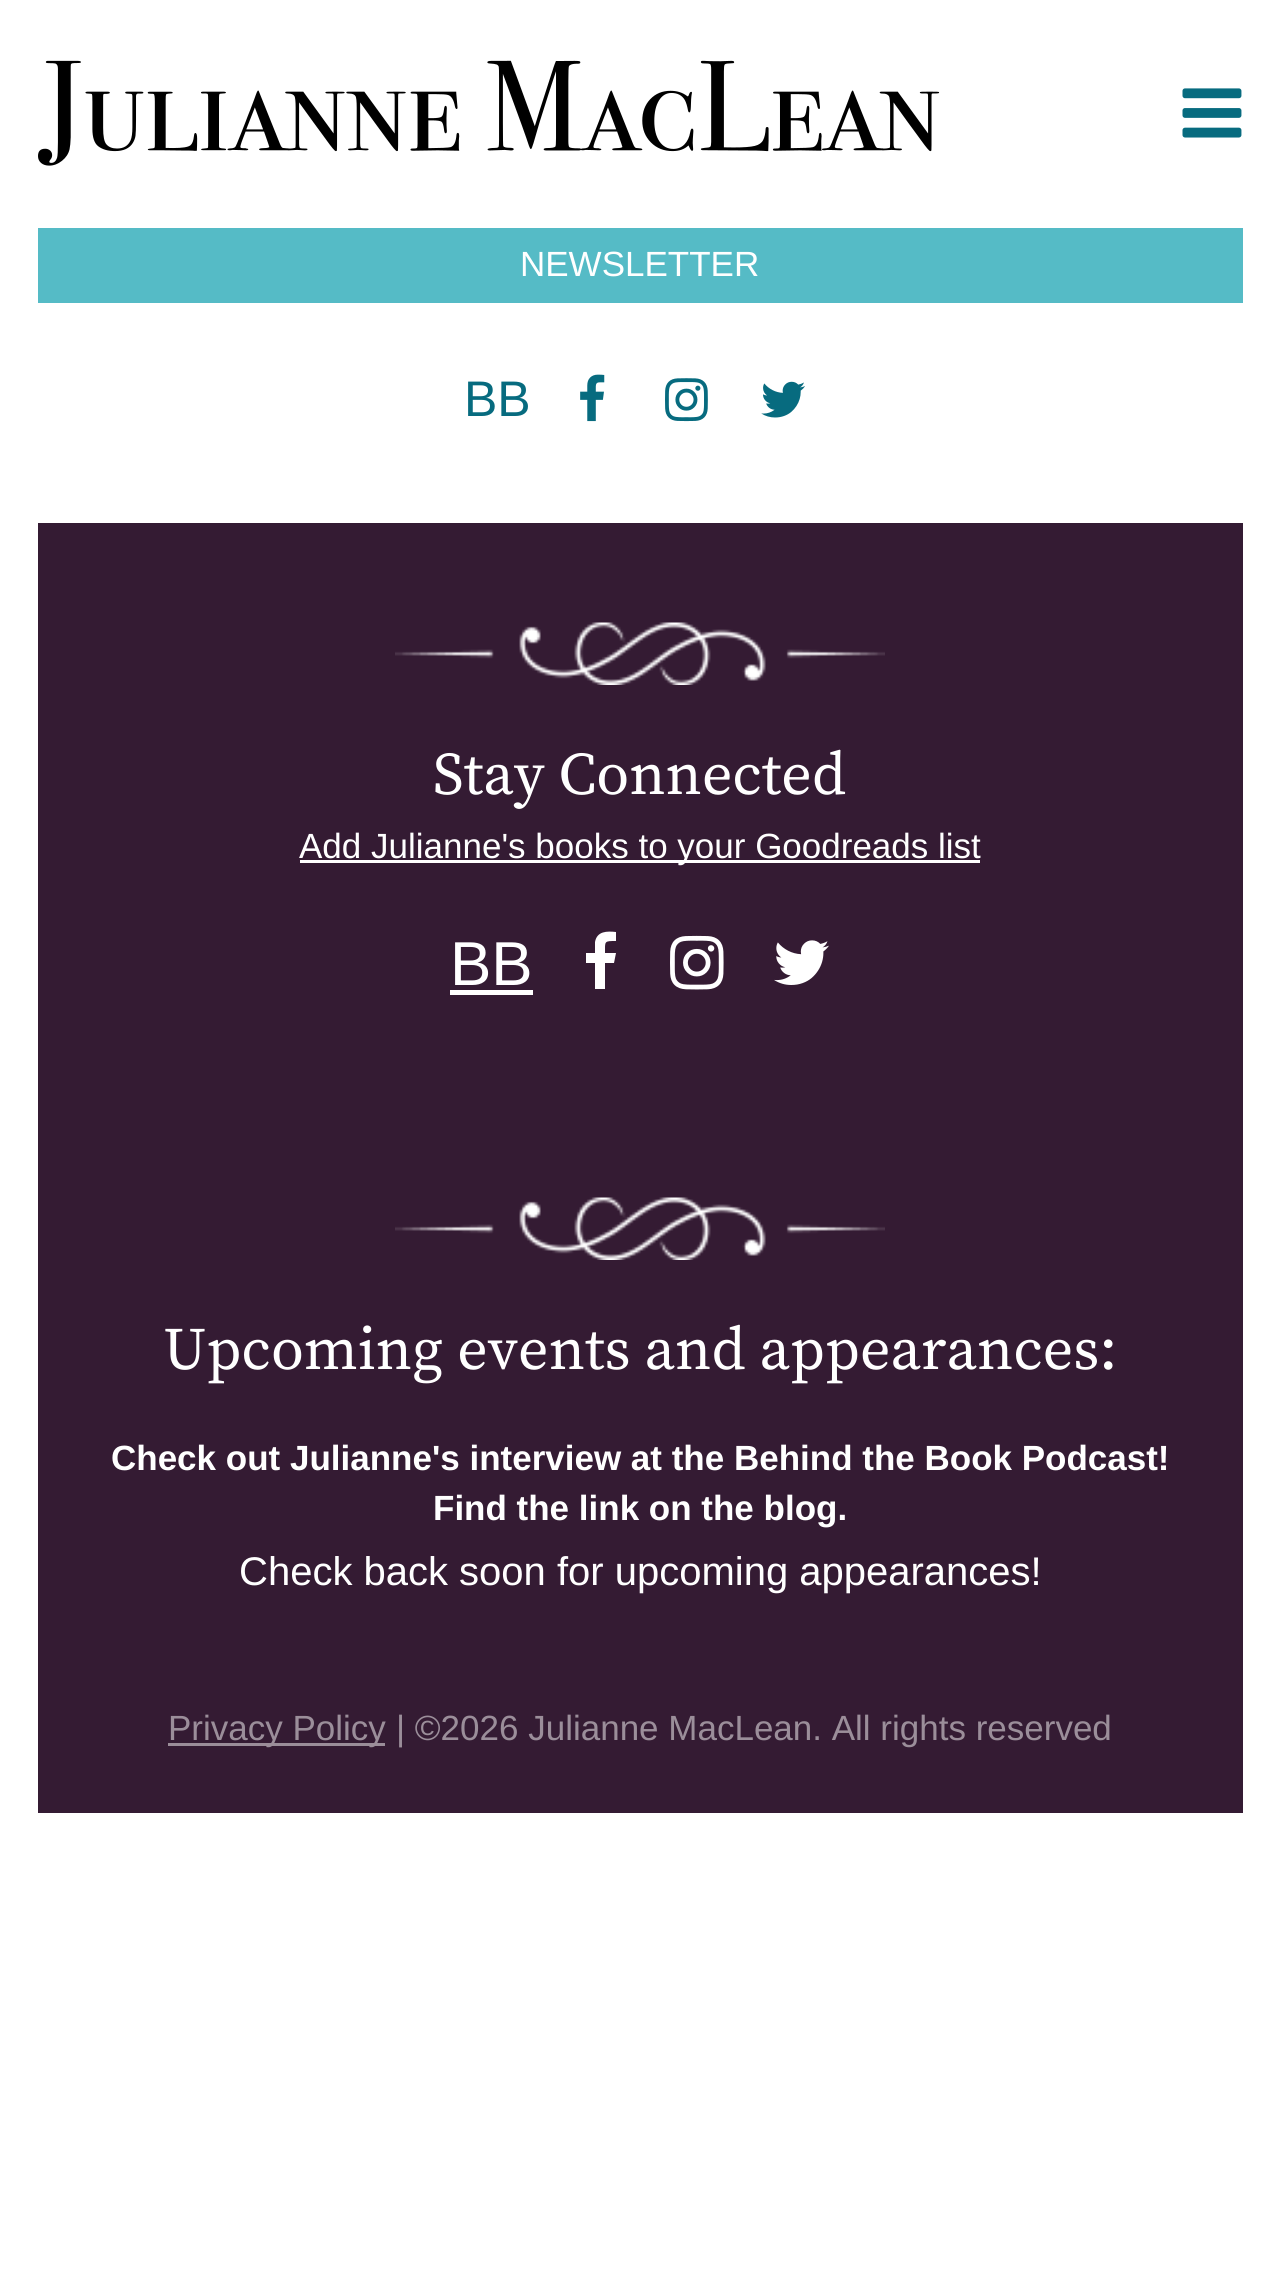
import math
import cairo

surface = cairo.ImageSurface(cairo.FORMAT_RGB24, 1278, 2287)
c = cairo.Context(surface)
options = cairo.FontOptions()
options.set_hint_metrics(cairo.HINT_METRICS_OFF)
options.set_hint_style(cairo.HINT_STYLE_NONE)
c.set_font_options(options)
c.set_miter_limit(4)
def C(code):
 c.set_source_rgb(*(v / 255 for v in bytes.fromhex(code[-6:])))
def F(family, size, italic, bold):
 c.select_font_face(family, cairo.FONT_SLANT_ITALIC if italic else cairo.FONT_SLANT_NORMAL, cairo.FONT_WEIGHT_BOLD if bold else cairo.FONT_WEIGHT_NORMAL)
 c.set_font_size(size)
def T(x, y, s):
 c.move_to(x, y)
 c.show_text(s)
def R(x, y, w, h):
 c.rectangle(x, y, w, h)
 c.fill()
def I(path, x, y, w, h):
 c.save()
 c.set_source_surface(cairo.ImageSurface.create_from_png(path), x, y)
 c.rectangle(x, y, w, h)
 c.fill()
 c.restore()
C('ffffff')
c.paint()
I('1.png',38,60,902,106)
I('2.png',1182,88,60,50)
C('55bbc6')
R(38,228,1205,75)
F('Liberation Sans',35,0,0)
C('ffffff')
T(520,276,'NEWSLETTER')
F('Liberation Sans',50,0,0)
C('076b7f')
T(464,416,'BB')
I('3.png',580,374,25,48)
I('4.png',665,378,43,44)
I('5.png',761,381,44,37)
C('341b33')
R(38,523,1205,1290)
I('6.png',395,622,490,63)
F('Source Serif Pro',60,0,0)
C('ffffff')
T(433,794,'Stay Connected')
R(300,860,680,3)
F('Liberation Sans',35,0,0)
T(299,858,'Add Julianne\'s books to your Goodreads list')
F('Liberation Sans',62,0,0)
T(450,985,'BB')
R(450,990,83,5)
c.new_path()
c.move_to(616,932)
c.line_to(616,941)
c.curve_to(604,941,605,941,605,953)
c.line_to(616,953)
c.line_to(614,963)
c.line_to(605,963)
c.line_to(605,989)
c.line_to(595,989)
c.line_to(595,963)
c.line_to(586,963)
c.line_to(586,953)
c.line_to(595,953)
c.line_to(595,942)
c.curve_to(597,931,607,931,616,932)
c.close_path()
c.fill()
I('7.png',670,935,54,55)
I('8.png',774,940,55,45)
I('6.png',395,1197,490,63)
F('Source Serif Pro',60,0,0)
T(163,1369,'Upcoming events and appearances:')
F('Liberation Sans',35,0,1)
T(111,1470,'Check out Julianne\'s interview at the Behind the Book Podcast!')
T(433,1520,'Find the link on the blog.')
F('Liberation Sans',40,0,0)
T(239,1585,'Check back soon for upcoming appearances!')
C('9a8d99')
R(168,1743,217,3)
F('Liberation Sans',35,0,0)
C('9b8e9a')
T(168,1740,'Privacy Policy')
T(396,1740,'| ©2026 Julianne MacLean. All rights reserved')
surface.write_to_png('o.png')
